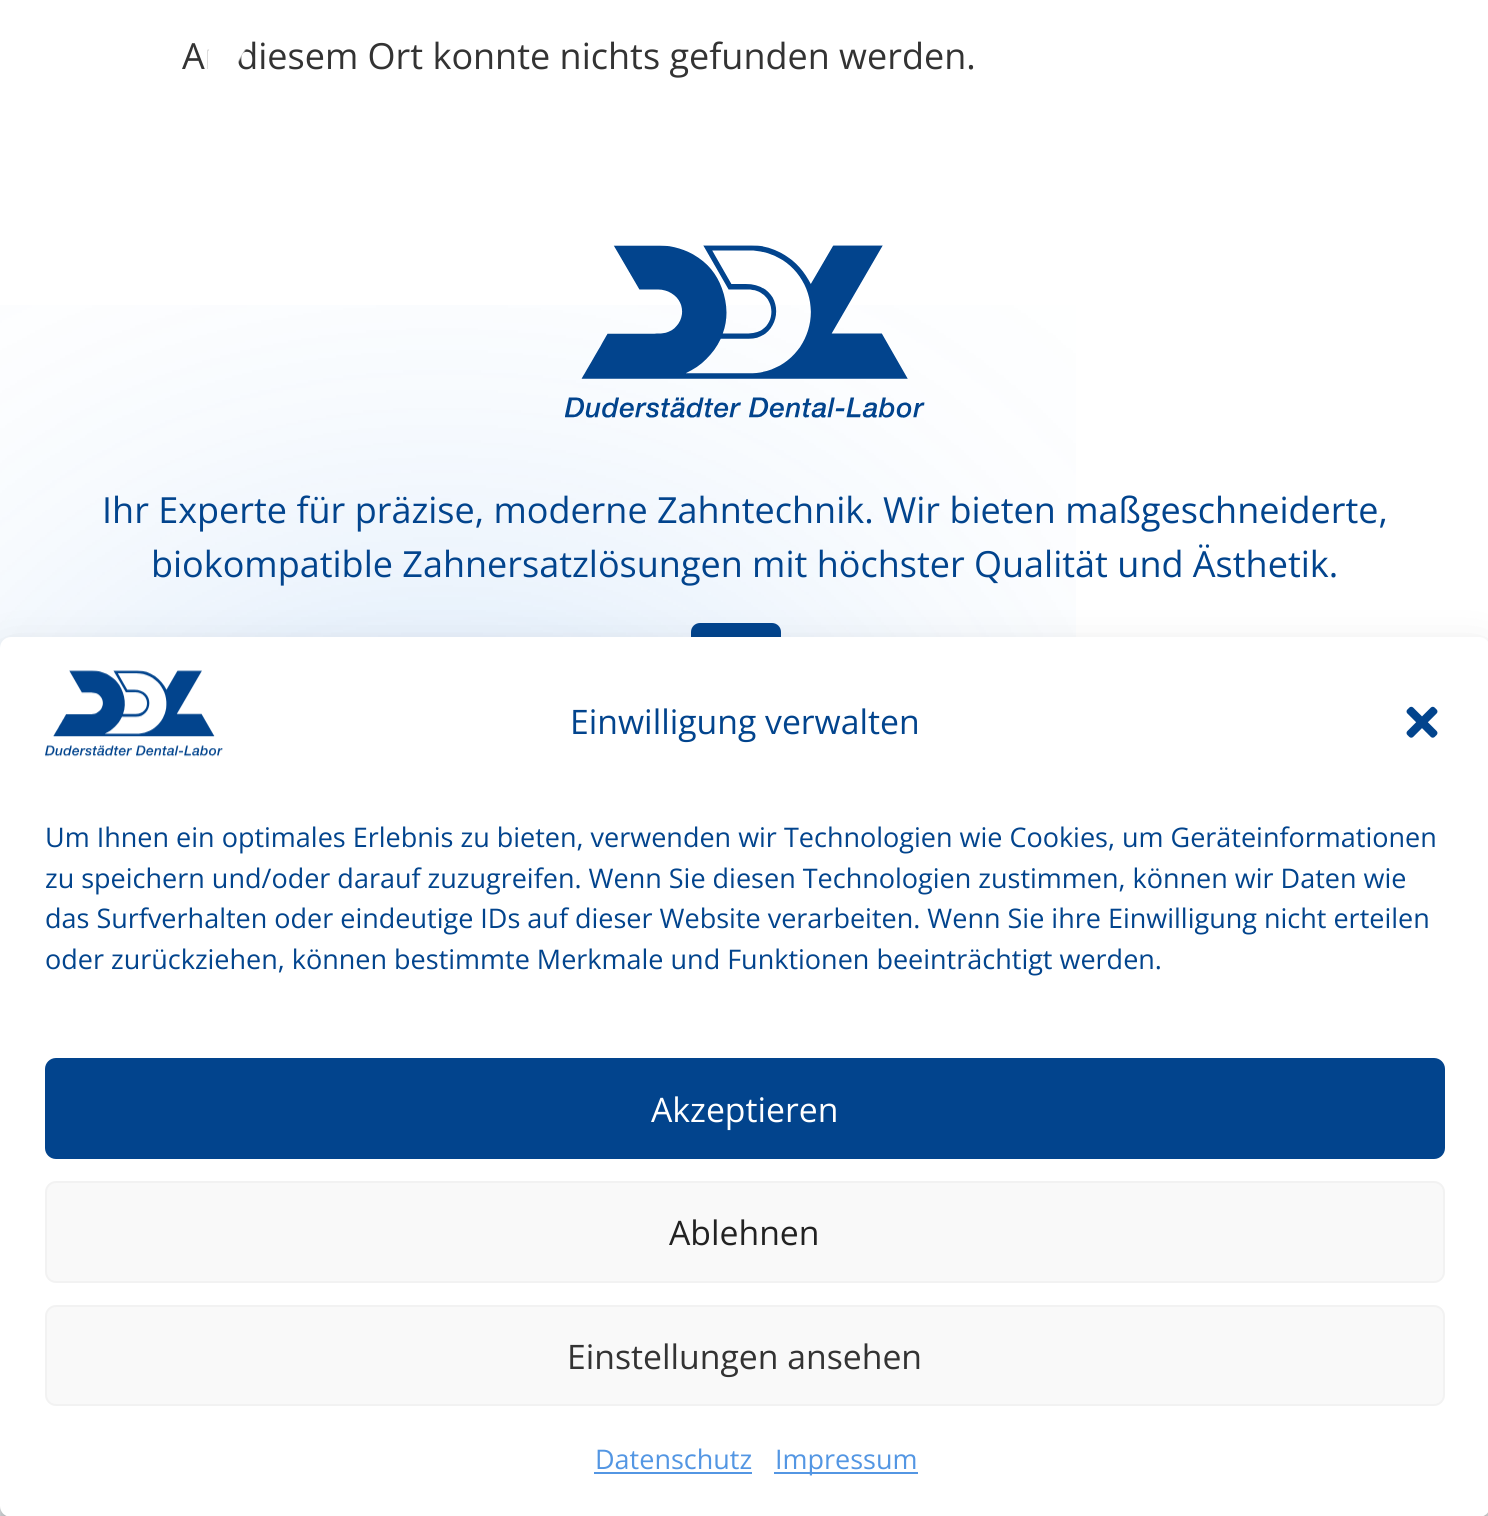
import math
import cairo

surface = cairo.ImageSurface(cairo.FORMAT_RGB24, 1488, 1516)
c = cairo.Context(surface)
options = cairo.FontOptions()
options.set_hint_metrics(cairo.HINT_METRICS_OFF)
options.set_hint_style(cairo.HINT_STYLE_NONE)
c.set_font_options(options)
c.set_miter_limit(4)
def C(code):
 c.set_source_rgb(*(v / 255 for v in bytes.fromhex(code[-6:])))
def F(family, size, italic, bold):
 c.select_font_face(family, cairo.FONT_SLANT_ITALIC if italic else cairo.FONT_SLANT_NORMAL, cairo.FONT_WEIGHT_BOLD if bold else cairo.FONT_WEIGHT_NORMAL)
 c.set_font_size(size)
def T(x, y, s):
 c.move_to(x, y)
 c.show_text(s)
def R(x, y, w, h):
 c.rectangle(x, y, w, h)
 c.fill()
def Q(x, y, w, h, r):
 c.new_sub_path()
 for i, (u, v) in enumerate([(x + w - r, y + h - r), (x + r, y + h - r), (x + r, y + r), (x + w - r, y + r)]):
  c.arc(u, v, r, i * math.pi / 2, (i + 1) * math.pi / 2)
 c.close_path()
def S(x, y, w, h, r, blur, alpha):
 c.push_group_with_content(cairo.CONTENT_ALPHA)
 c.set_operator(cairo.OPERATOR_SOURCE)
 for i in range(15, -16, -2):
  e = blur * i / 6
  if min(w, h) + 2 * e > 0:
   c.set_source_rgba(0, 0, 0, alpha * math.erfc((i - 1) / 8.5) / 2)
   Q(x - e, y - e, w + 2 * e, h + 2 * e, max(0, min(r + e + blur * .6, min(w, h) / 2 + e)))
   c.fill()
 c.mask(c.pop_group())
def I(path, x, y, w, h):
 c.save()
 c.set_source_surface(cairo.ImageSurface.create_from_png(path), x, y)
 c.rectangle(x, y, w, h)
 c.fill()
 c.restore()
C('ffffff')
c.paint()
F('Open Sans',36,0,0)
C('333333')
T(182,69,'An diesem Ort konnte nichts gefunden werden.')
I('1.png',208,49,39,20)
I('2.png',0,305,1076,1211)
I('3.png',565,245,360,173)
C('02448d')
T(102,523,'Ihr Experte für präzise, moderne Zahntechnik. Wir bieten maßgeschneiderte,')
T(151,577,'biokompatible Zahnersatzlösungen mit höchster Qualität und Ästhetik.')
Q(691,623,90,90,9)
c.fill()
C('000000')
S(0,650,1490,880,11,7,.23)
S(0,659,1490,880,11,22.5,.19)
C('ffffff')
Q(0,637,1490,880,11)
c.fill()
I('4.png',45,670,178,87)
F('Open Sans',33.75,0,0)
C('02448d')
T(570,734,'Einwilligung verwalten')
I('5.png',1406,706,32,32)
F('Open Sans',27,0,0)
T(45,847,'Um Ihnen ein optimales Erlebnis zu bieten, verwenden wir Technologien wie Cookies, um Geräteinformationen')
T(45,888,'zu speichern und/oder darauf zuzugreifen. Wenn Sie diesen Technologien zustimmen, können wir Daten wie')
T(45,928,'das Surfverhalten oder eindeutige IDs auf dieser Website verarbeiten. Wenn Sie ihre Einwilligung nicht erteilen')
T(45,969,'oder zurückziehen, können bestimmte Merkmale und Funktionen beeinträchtigt werden.')
Q(46,1059,1398,99,10)
c.fill_preserve()
c.stroke()
F('Open Sans',33.75,0,0)
C('ffffff')
T(651,1122,'Akzeptieren')
C('f9f9f9')
Q(46,1182,1398,100,10)
c.fill_preserve()
C('f2f2f2')
c.stroke()
C('222222')
T(669,1245,'Ablehnen')
C('f9f9f9')
Q(46,1306,1398,99,10)
c.fill_preserve()
C('f2f2f2')
c.stroke()
C('333333')
T(567,1369,'Einstellungen ansehen')
F('Open Sans',27,0,0)
C('5396e3')
T(595,1469,'Datenschutz')
R(594,1472,158,2)
R(774,1472,144,2)
T(775,1469,'Impressum')
surface.write_to_png('o.png')
